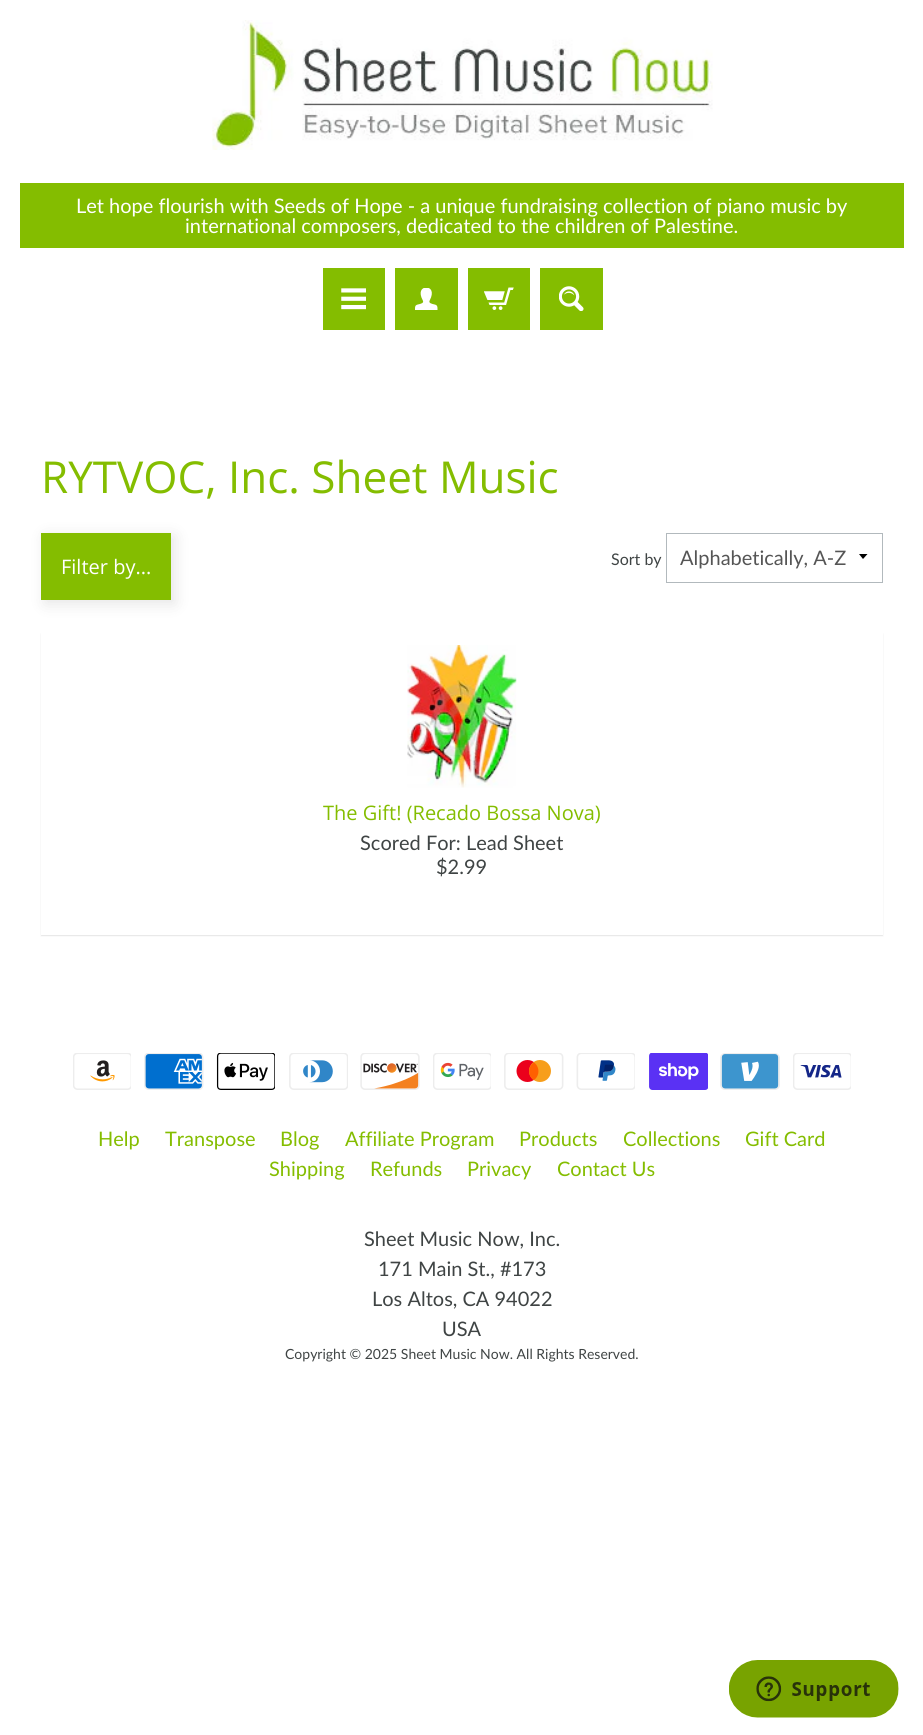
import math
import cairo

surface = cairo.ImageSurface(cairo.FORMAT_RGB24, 923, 1735)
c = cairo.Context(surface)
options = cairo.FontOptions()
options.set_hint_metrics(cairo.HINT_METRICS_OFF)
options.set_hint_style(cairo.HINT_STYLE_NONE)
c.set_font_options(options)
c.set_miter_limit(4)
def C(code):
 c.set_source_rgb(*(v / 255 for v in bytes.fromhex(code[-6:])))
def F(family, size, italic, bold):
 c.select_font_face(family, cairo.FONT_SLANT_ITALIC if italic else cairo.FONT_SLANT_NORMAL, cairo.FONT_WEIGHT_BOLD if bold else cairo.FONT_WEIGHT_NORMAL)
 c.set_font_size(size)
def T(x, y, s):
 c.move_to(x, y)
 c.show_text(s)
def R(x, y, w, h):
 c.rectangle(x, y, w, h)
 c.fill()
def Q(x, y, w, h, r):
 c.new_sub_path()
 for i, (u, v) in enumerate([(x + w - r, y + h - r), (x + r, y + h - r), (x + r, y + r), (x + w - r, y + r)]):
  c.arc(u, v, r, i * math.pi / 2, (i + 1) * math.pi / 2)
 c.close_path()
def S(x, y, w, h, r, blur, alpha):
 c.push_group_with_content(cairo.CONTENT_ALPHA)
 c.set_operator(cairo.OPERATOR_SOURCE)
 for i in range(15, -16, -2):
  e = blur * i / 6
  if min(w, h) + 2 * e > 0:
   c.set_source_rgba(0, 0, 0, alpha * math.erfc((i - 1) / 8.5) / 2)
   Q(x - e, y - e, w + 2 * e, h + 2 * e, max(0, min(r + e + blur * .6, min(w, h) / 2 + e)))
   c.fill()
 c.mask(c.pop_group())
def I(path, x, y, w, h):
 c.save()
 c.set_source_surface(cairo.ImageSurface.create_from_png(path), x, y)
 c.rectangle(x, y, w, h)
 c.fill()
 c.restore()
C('ffffff')
c.paint()
I('1.png',212,20,501,130)
C('84bd00')
R(20,183,884,65)
F('Lato',20,0,0)
C('ffffff')
T(76,213,'Let hope flourish with Seeds of Hope - a unique fundraising collection of piano music by')
T(185,233,'international composers, dedicated to the children of Palestine.')
C('84bd00')
R(323,268,62,62)
I('2.png',341,288,25,22)
R(395,268,63,62)
I('3.png',415,288,23,22)
R(468,268,62,62)
I('4.png',484,287,30,23)
R(540,268,63,62)
I('5.png',559,286,25,25)
F('Open Sans',44,0,0)
T(41,493,'RYTVOC, Inc. Sheet Music')
C('000000')
S(45,536,130,68,0,7.5,.1)
C('84bd00')
R(41,533,130,67)
F('Open Sans',20,0,0)
C('ffffff')
T(61,574,'Filter by...')
F('Lato',16,0,0)
C('3f4444')
T(611,565,'Sort by')
C('000000')
c.new_path()
c.move_to(859,554)
c.line_to(863,559)
c.line_to(867.5,554)
c.close_path()
c.fill()
c.rectangle(666.5,533.5,216,49)
C('b2b9bd')
c.set_line_width(1)
c.stroke()
F('Lato',20,0,0)
C('555555')
T(680,565,'Alphabetically, A-Z')
C('000000')
S(41,634,842,302,0,.5,.1)
C('ffffff')
R(41,633,842,302)
I('6.png',407,645,110,143)
F('Open Sans',20,0,0)
C('84bd00')
T(323,820,'The Gift! (Recado Bossa Nova)')
F('Lato',20,0,0)
C('3f4444')
T(360,850,'Scored For: Lead Sheet')
T(436,874,'$2.99')
I('7.png',73,1053,58,37)
I('8.png',144,1053,60,37)
I('9.png',216,1053,59,37)
I('10.png',289,1053,59,37)
I('11.png',360,1053,60,37)
I('12.png',433,1053,58,37)
I('13.png',504,1053,60,37)
I('14.png',576,1053,59,37)
I('15.png',649,1053,59,37)
I('16.png',720,1053,60,37)
I('17.png',793,1053,58,37)
C('84bd00')
T(98,1146,'Help')
T(165,1146,'Transpose')
T(280,1146,'Blog')
T(345,1146,'Affiliate Program')
T(519,1146,'Products')
T(623,1146,'Collections')
T(745,1146,'Gift Card')
T(269,1176,'Shipping')
T(370,1176,'Refunds')
T(467,1176,'Privacy')
T(557,1176,'Contact Us')
C('3f4444')
T(364,1246,'Sheet Music Now, Inc.')
T(378,1276,'171 Main St., #173')
T(372,1306,'Los Altos, CA 94022')
T(442,1336,'USA')
F('Lato',14,0,0)
T(285,1359,'Copyright © 2025 Sheet Music Now. All Rights Reserved.')
I('18.png',729,1660,170,58)
surface.write_to_png('o.png')
